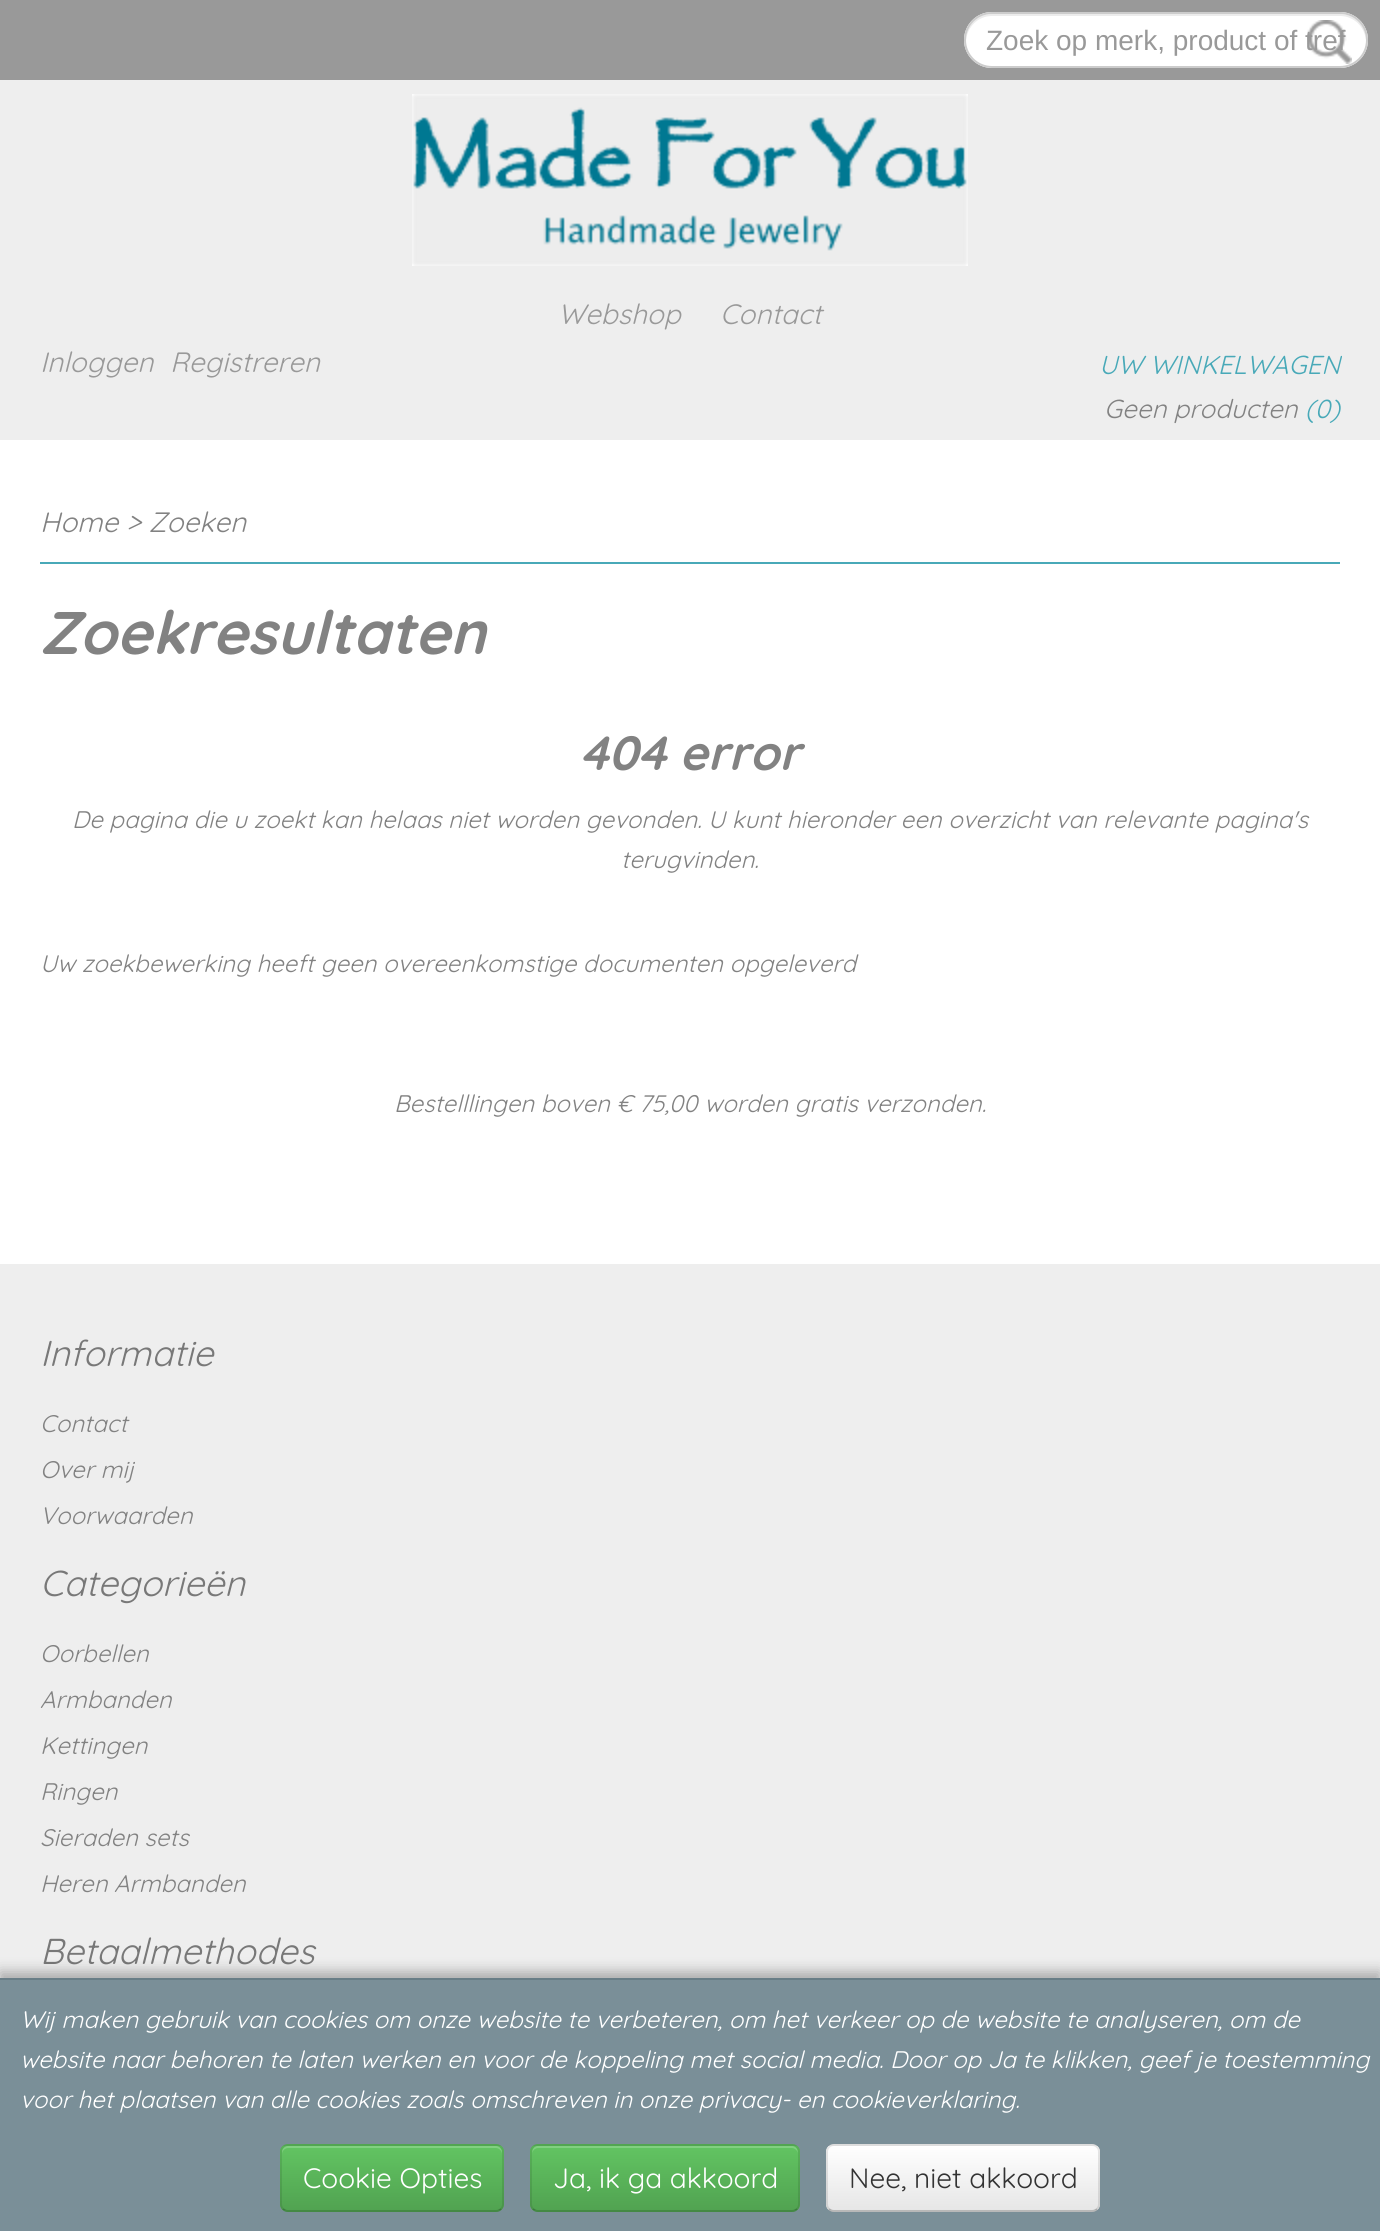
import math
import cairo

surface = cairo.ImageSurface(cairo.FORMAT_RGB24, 1380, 2231)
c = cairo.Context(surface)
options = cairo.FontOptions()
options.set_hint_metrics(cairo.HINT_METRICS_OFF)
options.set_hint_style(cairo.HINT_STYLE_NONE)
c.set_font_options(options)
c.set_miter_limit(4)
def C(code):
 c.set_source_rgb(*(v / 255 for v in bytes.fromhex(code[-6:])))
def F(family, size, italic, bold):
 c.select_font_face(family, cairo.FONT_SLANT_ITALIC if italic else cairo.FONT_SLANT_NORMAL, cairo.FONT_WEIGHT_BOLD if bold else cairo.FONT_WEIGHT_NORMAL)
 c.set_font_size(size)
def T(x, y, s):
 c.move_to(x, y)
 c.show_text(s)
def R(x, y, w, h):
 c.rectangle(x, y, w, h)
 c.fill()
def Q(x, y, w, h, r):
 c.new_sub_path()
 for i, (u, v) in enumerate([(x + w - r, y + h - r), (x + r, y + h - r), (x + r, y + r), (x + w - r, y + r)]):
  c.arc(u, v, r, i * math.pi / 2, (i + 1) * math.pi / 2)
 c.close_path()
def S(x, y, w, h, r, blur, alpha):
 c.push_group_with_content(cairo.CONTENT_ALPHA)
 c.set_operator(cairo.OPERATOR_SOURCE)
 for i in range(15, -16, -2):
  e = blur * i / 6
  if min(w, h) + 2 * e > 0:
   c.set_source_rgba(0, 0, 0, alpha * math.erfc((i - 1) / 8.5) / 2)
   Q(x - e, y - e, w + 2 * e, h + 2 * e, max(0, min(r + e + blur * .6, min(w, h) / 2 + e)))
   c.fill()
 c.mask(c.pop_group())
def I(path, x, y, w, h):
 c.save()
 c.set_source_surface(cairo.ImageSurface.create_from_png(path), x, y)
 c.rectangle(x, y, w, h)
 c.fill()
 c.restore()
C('ffffff')
c.paint()
C('999999')
R(0,0,1380,80)
C('ffffff')
Q(964,12,404,56,28)
c.fill()
C('ececec')
c.new_path()
c.move_to(992,16)
c.line_to(1340,16)
c.curve_to(1354,16,1365,27,1366,41)
c.curve_to(1367,26,1355,14,1340,14)
c.line_to(992,14)
c.curve_to(977,14,965,26,966,41)
c.curve_to(967,27,978,16,992,16)
c.close_path()
c.fill()
Q(965,13,402,54,27)
C('cccccc')
c.stroke()
F('Liberation Sans',28,0,0)
C('999999')
T(986,50,'Zoek op merk, product of tref')
I('1.png',1307,20,45,44)
C('eeeeee')
R(0,80,1380,360)
I('2.png',412,94,556,172)
F('Quicksand',28,1,0)
C('999999')
T(558,324,'Webshop')
T(720,324,'Contact')
T(40,372,'Inloggen')
T(170,372,'Registreren')
F('Quicksand',26,1,0)
C('48a9b8')
T(1099,374,'UW WINKELWAGEN')
C('828282')
T(1104,418,'Geen producten')
C('48a9b8')
T(1305,418,'(0)')
R(40,562,1300,2)
F('Quicksand',28,1,0)
C('828282')
T(40,532,'Home')
T(126,532,'> Zoeken')
F('Quicksand',60,1,1)
T(40,654,'Zoekresultaten')
F('Quicksand',48,1,1)
T(580,770,'404 error')
F('Quicksand',24,1,0)
T(72,828,'De pagina die u zoekt kan helaas niet worden gevonden. U kunt hieronder een overzicht van relevante pagina\'s')
T(621,868,'terugvinden.')
T(40,972,'Uw zoekbewerking heeft geen overeenkomstige documenten opgeleverd')
T(394,1112,'Bestelllingen boven € 75,00 worden gratis verzonden.')
C('eeeeee')
R(0,1264,1380,714)
F('Quicksand',36,1,0)
C('787878')
T(40,1366,'Informatie')
F('Quicksand',24,1,0)
C('828282')
T(40,1432,'Contact')
T(40,1478,'Over mij')
T(40,1524,'Voorwaarden')
F('Quicksand',36,1,0)
C('787878')
T(40,1596,'Categorieën')
F('Quicksand',24,1,0)
C('828282')
T(40,1662,'Oorbellen')
T(40,1708,'Armbanden')
T(40,1754,'Kettingen')
T(40,1800,'Ringen')
T(40,1846,'Sieraden sets')
T(40,1892,'Heren Armbanden')
F('Quicksand',36,1,0)
C('787878')
T(40,1964,'Betaalmethodes')
C('000000')
S(0,1972,1380,254,0,7,.3)
C('7a8f98')
R(0,1980,1380,251)
C('697e87')
R(0,1978,1380,2)
F('Quicksand',24,1,0)
C('ffffff')
T(20,2028,'Wij maken gebruik van cookies om onze website te verbeteren, om het verkeer op de website te analyseren, om de')
T(20,2068,'website naar behoren te laten werken en voor de koppeling met social media. Door op Ja te klikken, geef je toestemming')
T(20,2108,'voor het plaatsen van alle cookies zoals omschreven in onze privacy- en cookieverklaring.')
C('5bb75b')
Q(280,2144,224,68,8)
c.fill()
c.save()
Q(280,2144,224,68,8)
c.clip()
gradient = cairo.LinearGradient(392,2146,392,2210)
gradient.add_color_stop_rgba(0,0.384,0.769,0.384,1)
gradient.add_color_stop_rgba(1,0.318,0.639,0.318,1)
c.set_source(gradient)
R(280,2146,224,64)
c.restore()
c.set_source_rgba(1,1,1,0.2)
c.new_path()
c.move_to(288,2148)
c.line_to(496,2148)
c.curve_to(499,2148,502,2151,502,2154)
c.line_to(502,2152)
c.curve_to(502,2149,499,2146,496,2146)
c.line_to(288,2146)
c.curve_to(285,2146,282,2149,282,2152)
c.line_to(282,2154)
c.curve_to(282,2151,285,2148,288,2148)
c.close_path()
c.fill()
c.new_path()
c.move_to(501,2209)
c.curve_to(499.5,2210.5,498,2211,496,2211)
c.line_to(288,2211)
c.curve_to(286,2211,284.5,2210.5,283,2209)
c.set_source_rgba(0,0,0,0.25)
c.stroke()
c.new_path()
c.move_to(283,2209)
c.curve_to(281.5,2207.5,281,2206,281,2204)
c.line_to(281,2152)
c.curve_to(281,2150,281.5,2148.5,283,2147)
c.curve_to(284.5,2145.5,286,2145,288,2145)
c.line_to(496,2145)
c.curve_to(498,2145,499.5,2145.5,501,2147)
c.curve_to(502.5,2148.5,503,2150,503,2152)
c.line_to(503,2204)
c.curve_to(503,2206,502.5,2207.5,501,2209)
c.set_source_rgba(0,0,0,0.1)
c.stroke()
F('Quicksand',28,0,0)
C('ffffff')
T(303,2188,'Cookie Opties')
C('5bb75b')
Q(530,2144,270,68,8)
c.fill()
c.save()
Q(530,2144,270,68,8)
c.clip()
gradient = cairo.LinearGradient(665,2146,665,2210)
gradient.add_color_stop_rgba(0,0.384,0.769,0.384,1)
gradient.add_color_stop_rgba(1,0.318,0.639,0.318,1)
c.set_source(gradient)
R(530,2146,270,64)
c.restore()
C('81cf81')
c.new_path()
c.move_to(538,2148)
c.line_to(792,2148)
c.curve_to(795,2148,798,2151,798,2154)
c.curve_to(798,2151,797,2147,793,2146)
c.line_to(537,2146)
c.curve_to(533,2147,532,2151,532,2154)
c.curve_to(532,2151,535,2148,538,2148)
c.close_path()
c.fill()
c.new_path()
c.move_to(797,2209)
c.curve_to(795.5,2210.5,794,2211,792,2211)
c.line_to(538,2211)
c.curve_to(536,2211,534.5,2210.5,533,2209)
c.set_source_rgba(0,0,0,0.25)
c.stroke()
c.new_path()
c.move_to(533,2209)
c.curve_to(531.5,2207.5,531,2206,531,2204)
c.line_to(531,2152)
c.curve_to(531,2150,531.5,2148.5,533,2147)
c.curve_to(534.5,2145.5,536,2145,538,2145)
c.line_to(792,2145)
c.curve_to(794,2145,795.5,2145.5,797,2147)
c.curve_to(798.5,2148.5,799,2150,799,2152)
c.line_to(799,2204)
c.curve_to(799,2206,798.5,2207.5,797,2209)
c.set_source_rgba(0,0,0,0.1)
c.stroke()
C('ffffff')
T(553,2188,'Ja, ik ga akkoord')
C('f5f5f5')
Q(826,2144,274,68,8)
c.fill()
c.save()
Q(826,2144,274,68,8)
c.clip()
gradient = cairo.LinearGradient(963,2146,963,2210)
gradient.add_color_stop_rgba(0,1,1,1,1)
gradient.add_color_stop_rgba(1,0.902,0.902,0.902,1)
c.set_source(gradient)
R(826,2146,274,64)
c.restore()
c.new_path()
c.move_to(1097,2209)
c.curve_to(1095.5,2210.5,1094,2211,1092,2211)
c.line_to(834,2211)
c.curve_to(832,2211,830.5,2210.5,829,2209)
c.set_source_rgba(0,0,0,0.25)
c.stroke()
c.new_path()
c.move_to(829,2209)
c.curve_to(827.5,2207.5,827,2206,827,2204)
c.line_to(827,2152)
c.curve_to(827,2150,827.5,2148.5,829,2147)
c.curve_to(830.5,2145.5,832,2145,834,2145)
c.line_to(1092,2145)
c.curve_to(1094,2145,1095.5,2145.5,1097,2147)
c.curve_to(1098.5,2148.5,1099,2150,1099,2152)
c.line_to(1099,2204)
c.curve_to(1099,2206,1098.5,2207.5,1097,2209)
c.set_source_rgba(0,0,0,0.1)
c.stroke()
C('333333')
T(849,2188,'Nee, niet akkoord')
surface.write_to_png('o.png')
